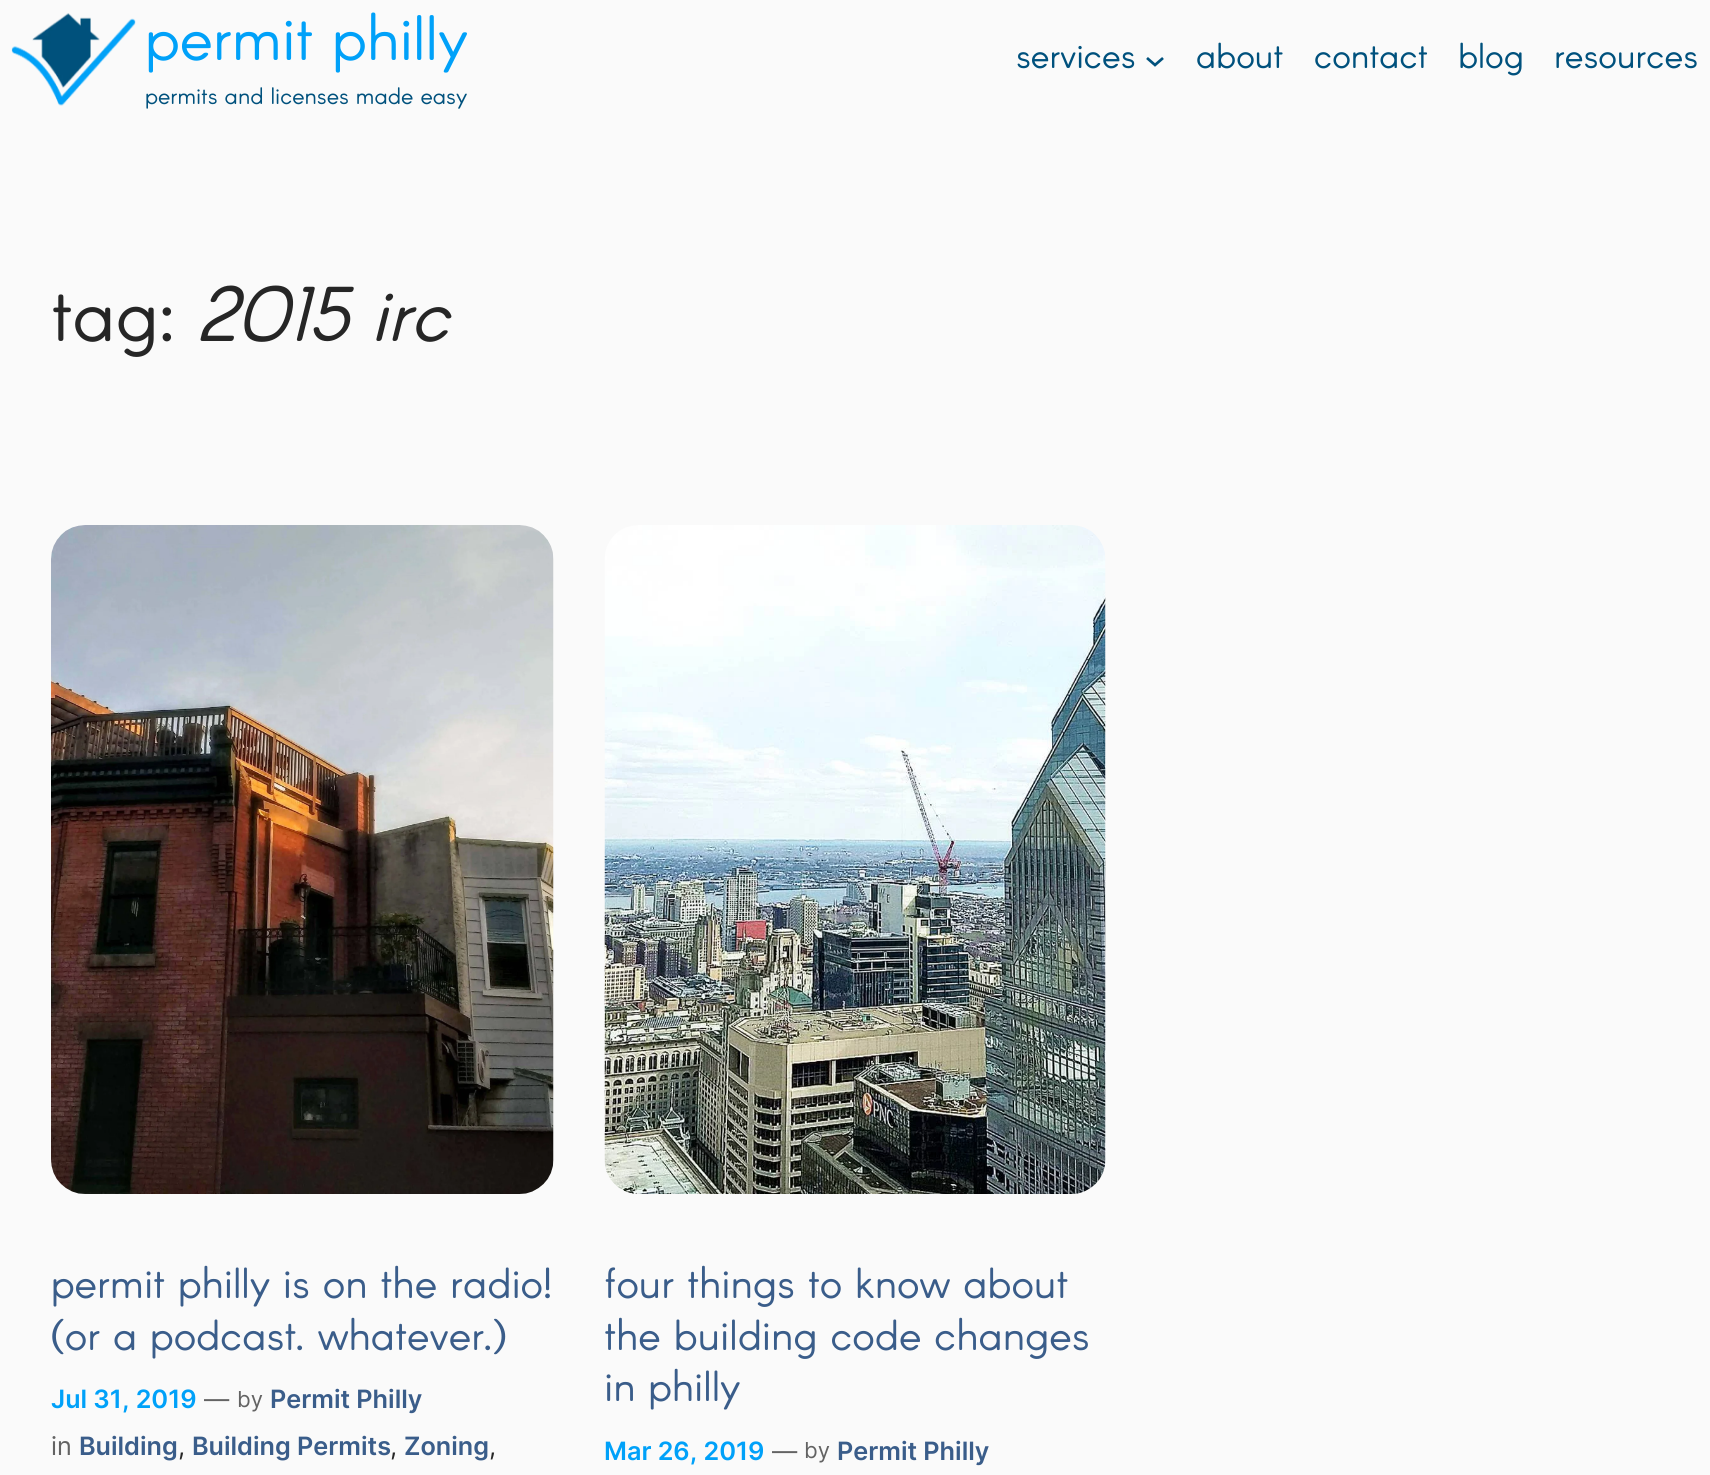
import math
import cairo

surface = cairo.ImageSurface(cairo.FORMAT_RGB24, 1710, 1475)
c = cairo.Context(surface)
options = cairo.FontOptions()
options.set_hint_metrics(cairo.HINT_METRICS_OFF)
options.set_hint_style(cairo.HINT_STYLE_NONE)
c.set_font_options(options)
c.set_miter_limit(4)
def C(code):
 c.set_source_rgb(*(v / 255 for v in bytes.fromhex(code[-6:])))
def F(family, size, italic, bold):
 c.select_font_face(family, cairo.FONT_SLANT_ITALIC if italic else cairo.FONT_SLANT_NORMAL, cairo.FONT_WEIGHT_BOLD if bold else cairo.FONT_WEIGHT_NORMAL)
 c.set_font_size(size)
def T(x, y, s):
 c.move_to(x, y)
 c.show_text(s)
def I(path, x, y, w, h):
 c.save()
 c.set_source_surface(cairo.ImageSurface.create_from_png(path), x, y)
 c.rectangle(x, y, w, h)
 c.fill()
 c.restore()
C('fafafa')
c.paint()
I('1.png',11,13,125,93)
F('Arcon',63,0,0)
C('00a1f9')
T(145,60,'permit philly')
F('Arcon',23.5,0,0)
C('00517d')
T(145,104,'permits and licenses made easy')
F('Arcon',35.5,0,0)
T(1016,68,'services')
c.new_path()
c.move_to(1147,58)
c.line_to(1155,65)
c.line_to(1163,58)
c.set_line_width(2.7)
c.stroke()
T(1196,68,'about')
T(1314,68,'contact')
T(1458,68,'blog')
T(1554,68,'resources')
F('Arcon',76,0,0)
C('262626')
T(51,341,'tag:')
F('Arcon',76,1,0)
T(197,341,'2015 irc')
I('2.png',51,525,503,669)
F('Arcon',42.75,0,0)
C('3a5d8a')
T(51,1298,'permit philly is on the radio!')
T(51,1350,'(or a podcast. whatever.)')
F('Inter SemiBold',25.25,0,0)
C('00a1f9')
T(51,1408,'Jul 31, 2019')
F('Inter',25.25,0,0)
C('636363')
T(204,1408,'—')
F('Inter',22,0,0)
T(237,1407,'by')
F('Inter SemiBold',25.25,0,0)
C('3a5d8a')
T(270,1408,'Permit Philly')
F('Inter',25.25,0,0)
C('636363')
T(51,1455,'in')
F('Inter SemiBold',25.25,0,0)
C('3a5d8a')
T(79,1455,'Building')
T(192,1455,'Building Permits')
T(404,1455,'Zoning')
F('Inter',25.25,0,0)
C('262626')
T(178,1455,',')
T(390,1455,',')
T(489,1455,',')
I('3.png',604,525,502,669)
F('Arcon',42.75,0,0)
C('3a5d8a')
T(604,1298,'four things to know about')
T(604,1350,'the building code changes')
T(604,1401,'in philly')
F('Inter SemiBold',25.25,0,0)
C('00a1f9')
T(604,1460,'Mar 26, 2019')
F('Inter',25.25,0,0)
C('636363')
T(772,1460,'—')
F('Inter',22,0,0)
T(804,1458,'by')
F('Inter SemiBold',25.25,0,0)
C('3a5d8a')
T(837,1460,'Permit Philly')
surface.write_to_png('o.png')
